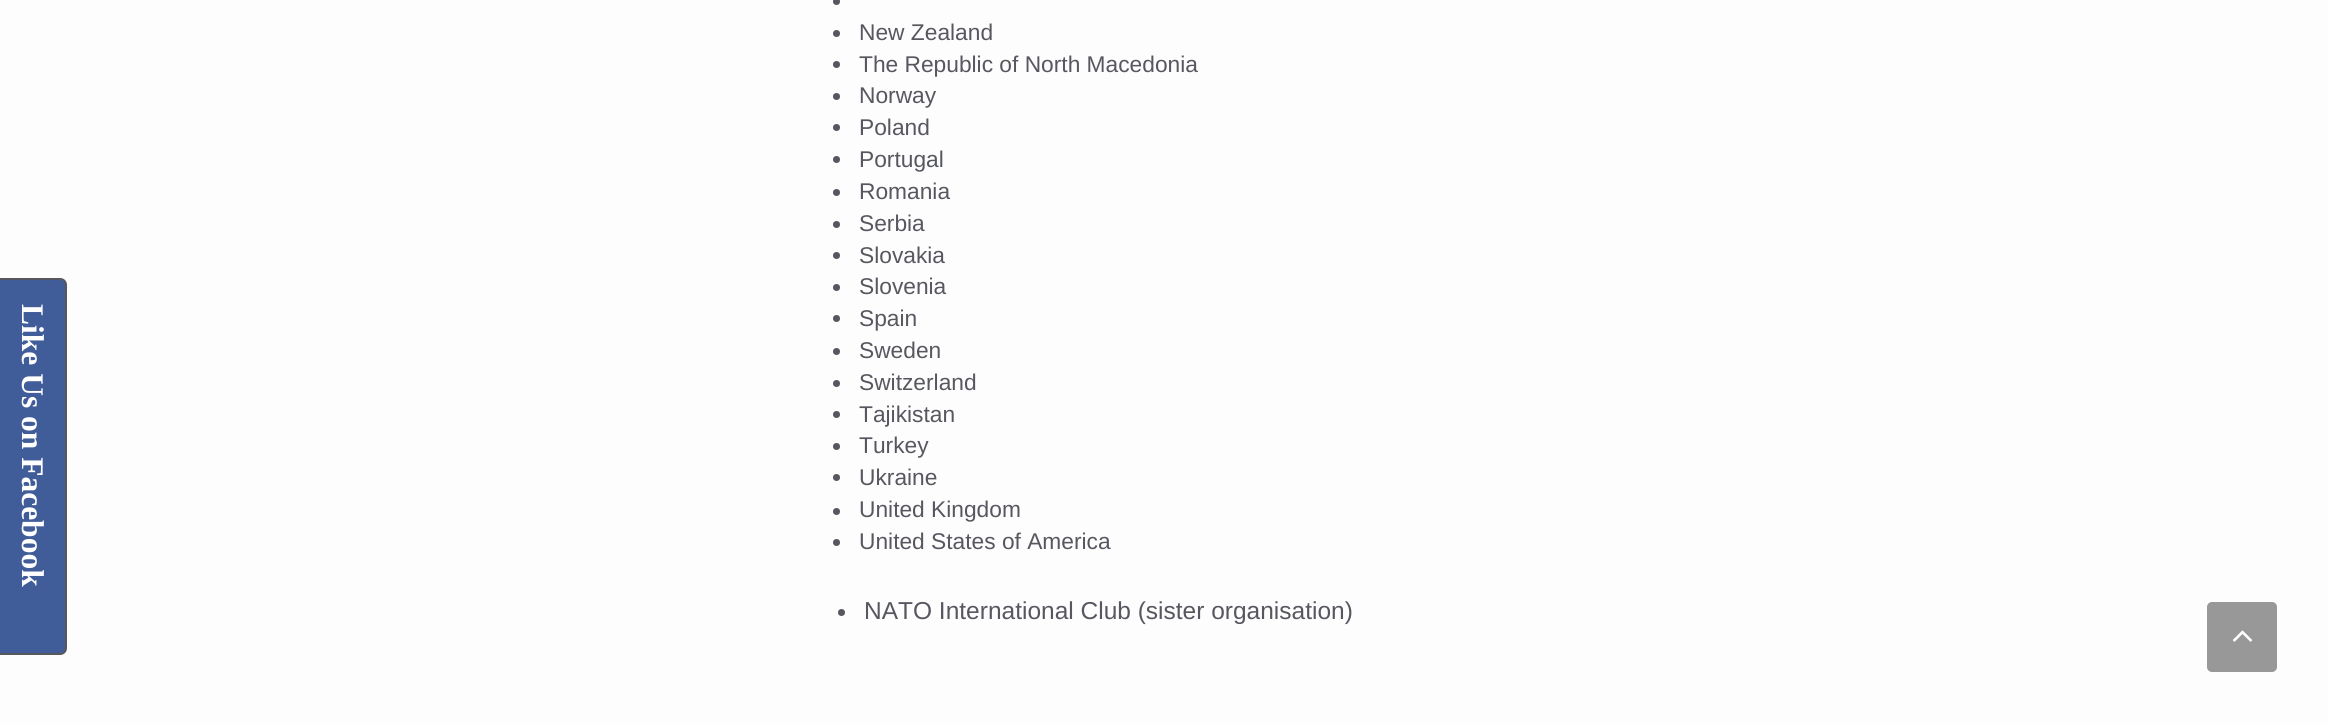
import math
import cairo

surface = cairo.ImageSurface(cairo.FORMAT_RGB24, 2328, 724)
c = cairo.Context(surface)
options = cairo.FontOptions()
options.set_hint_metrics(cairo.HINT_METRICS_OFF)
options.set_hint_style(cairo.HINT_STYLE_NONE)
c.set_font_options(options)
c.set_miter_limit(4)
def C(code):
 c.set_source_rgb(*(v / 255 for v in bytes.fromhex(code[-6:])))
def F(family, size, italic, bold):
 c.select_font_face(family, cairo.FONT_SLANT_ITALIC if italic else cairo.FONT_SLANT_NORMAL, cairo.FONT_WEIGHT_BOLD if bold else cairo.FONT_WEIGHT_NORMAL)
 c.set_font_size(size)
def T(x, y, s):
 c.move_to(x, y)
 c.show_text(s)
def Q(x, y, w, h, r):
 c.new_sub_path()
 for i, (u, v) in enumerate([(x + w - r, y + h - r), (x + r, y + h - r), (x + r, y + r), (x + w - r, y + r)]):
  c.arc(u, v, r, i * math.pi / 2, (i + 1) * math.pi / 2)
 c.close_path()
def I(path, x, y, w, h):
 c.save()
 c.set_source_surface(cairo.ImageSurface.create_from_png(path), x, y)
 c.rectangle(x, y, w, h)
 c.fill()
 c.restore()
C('fdfdfd')
c.paint()
C('405d9a')
c.new_path()
c.move_to(-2,279)
c.line_to(60,279)
c.curve_to(63.5,279,66,281.5,66,285)
c.line_to(66,648)
c.curve_to(66,651.5,63.5,654,60,654)
c.line_to(-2,654)
c.close_path()
c.fill_preserve()
C('575760')
c.stroke()
F('Liberation Serif',31.5,0,1)
C('ffffff')
c.save()
c.translate(22,304)
c.rotate(90 * math.pi / 180)
T(0,0,'Like Us on Facebook')
c.restore()
C('575760')
c.new_path()
c.arc(836.5,1.5,3.5,0,2 * math.pi)
c.fill()
c.arc(836.5,33.5,3.5,0,2 * math.pi)
c.fill()
F('Liberation Sans',22.75,0,0)
T(859,40,'New Zealand')
c.new_path()
c.arc(836.5,64.5,3.5,0,2 * math.pi)
c.fill()
T(859,72,'The Republic of North Macedonia')
c.new_path()
c.arc(836.5,96.5,3.5,0,2 * math.pi)
c.fill()
T(859,103,'Norway')
c.new_path()
c.arc(836.5,127.5,3.5,0,2 * math.pi)
c.fill()
T(859,135,'Poland')
c.new_path()
c.arc(836.5,159.5,3.5,0,2 * math.pi)
c.fill()
T(859,167,'Portugal')
c.new_path()
c.arc(836.5,192.5,3.5,0,2 * math.pi)
c.fill()
T(859,199,'Romania')
c.new_path()
c.arc(836.5,224.5,3.5,0,2 * math.pi)
c.fill()
T(859,231,'Serbia')
c.new_path()
c.arc(836.5,255.5,3.5,0,2 * math.pi)
c.fill()
T(859,263,'Slovakia')
c.new_path()
c.arc(836.5,287.5,3.5,0,2 * math.pi)
c.fill()
T(859,294,'Slovenia')
c.new_path()
c.arc(836.5,318.5,3.5,0,2 * math.pi)
c.fill()
T(859,326,'Spain')
c.new_path()
c.arc(836.5,351.5,3.5,0,2 * math.pi)
c.fill()
T(859,358,'Sweden')
c.new_path()
c.arc(836.5,383.5,3.5,0,2 * math.pi)
c.fill()
T(859,390,'Switzerland')
c.new_path()
c.arc(836.5,414.5,3.5,0,2 * math.pi)
c.fill()
T(859,422,'Tajikistan')
c.new_path()
c.arc(836.5,446.5,3.5,0,2 * math.pi)
c.fill()
T(859,453,'Turkey')
c.new_path()
c.arc(836.5,477.5,3.5,0,2 * math.pi)
c.fill()
T(859,485,'Ukraine')
c.new_path()
c.arc(836.5,511.5,3.5,0,2 * math.pi)
c.fill()
T(859,517,'United Kingdom')
c.new_path()
c.arc(836.5,542.5,3.5,0,2 * math.pi)
c.fill()
T(859,549,'United States of America')
c.new_path()
c.arc(841.5,612.5,3.5,0,2 * math.pi)
c.fill()
F('Liberation Sans',24.5,0,0)
T(864,619,'NATO International Club (sister organisation)')
C('989898')
Q(2207,602,70,70,5)
c.fill()
I('1.png',2232,630,21,12)
surface.write_to_png('o.png')
